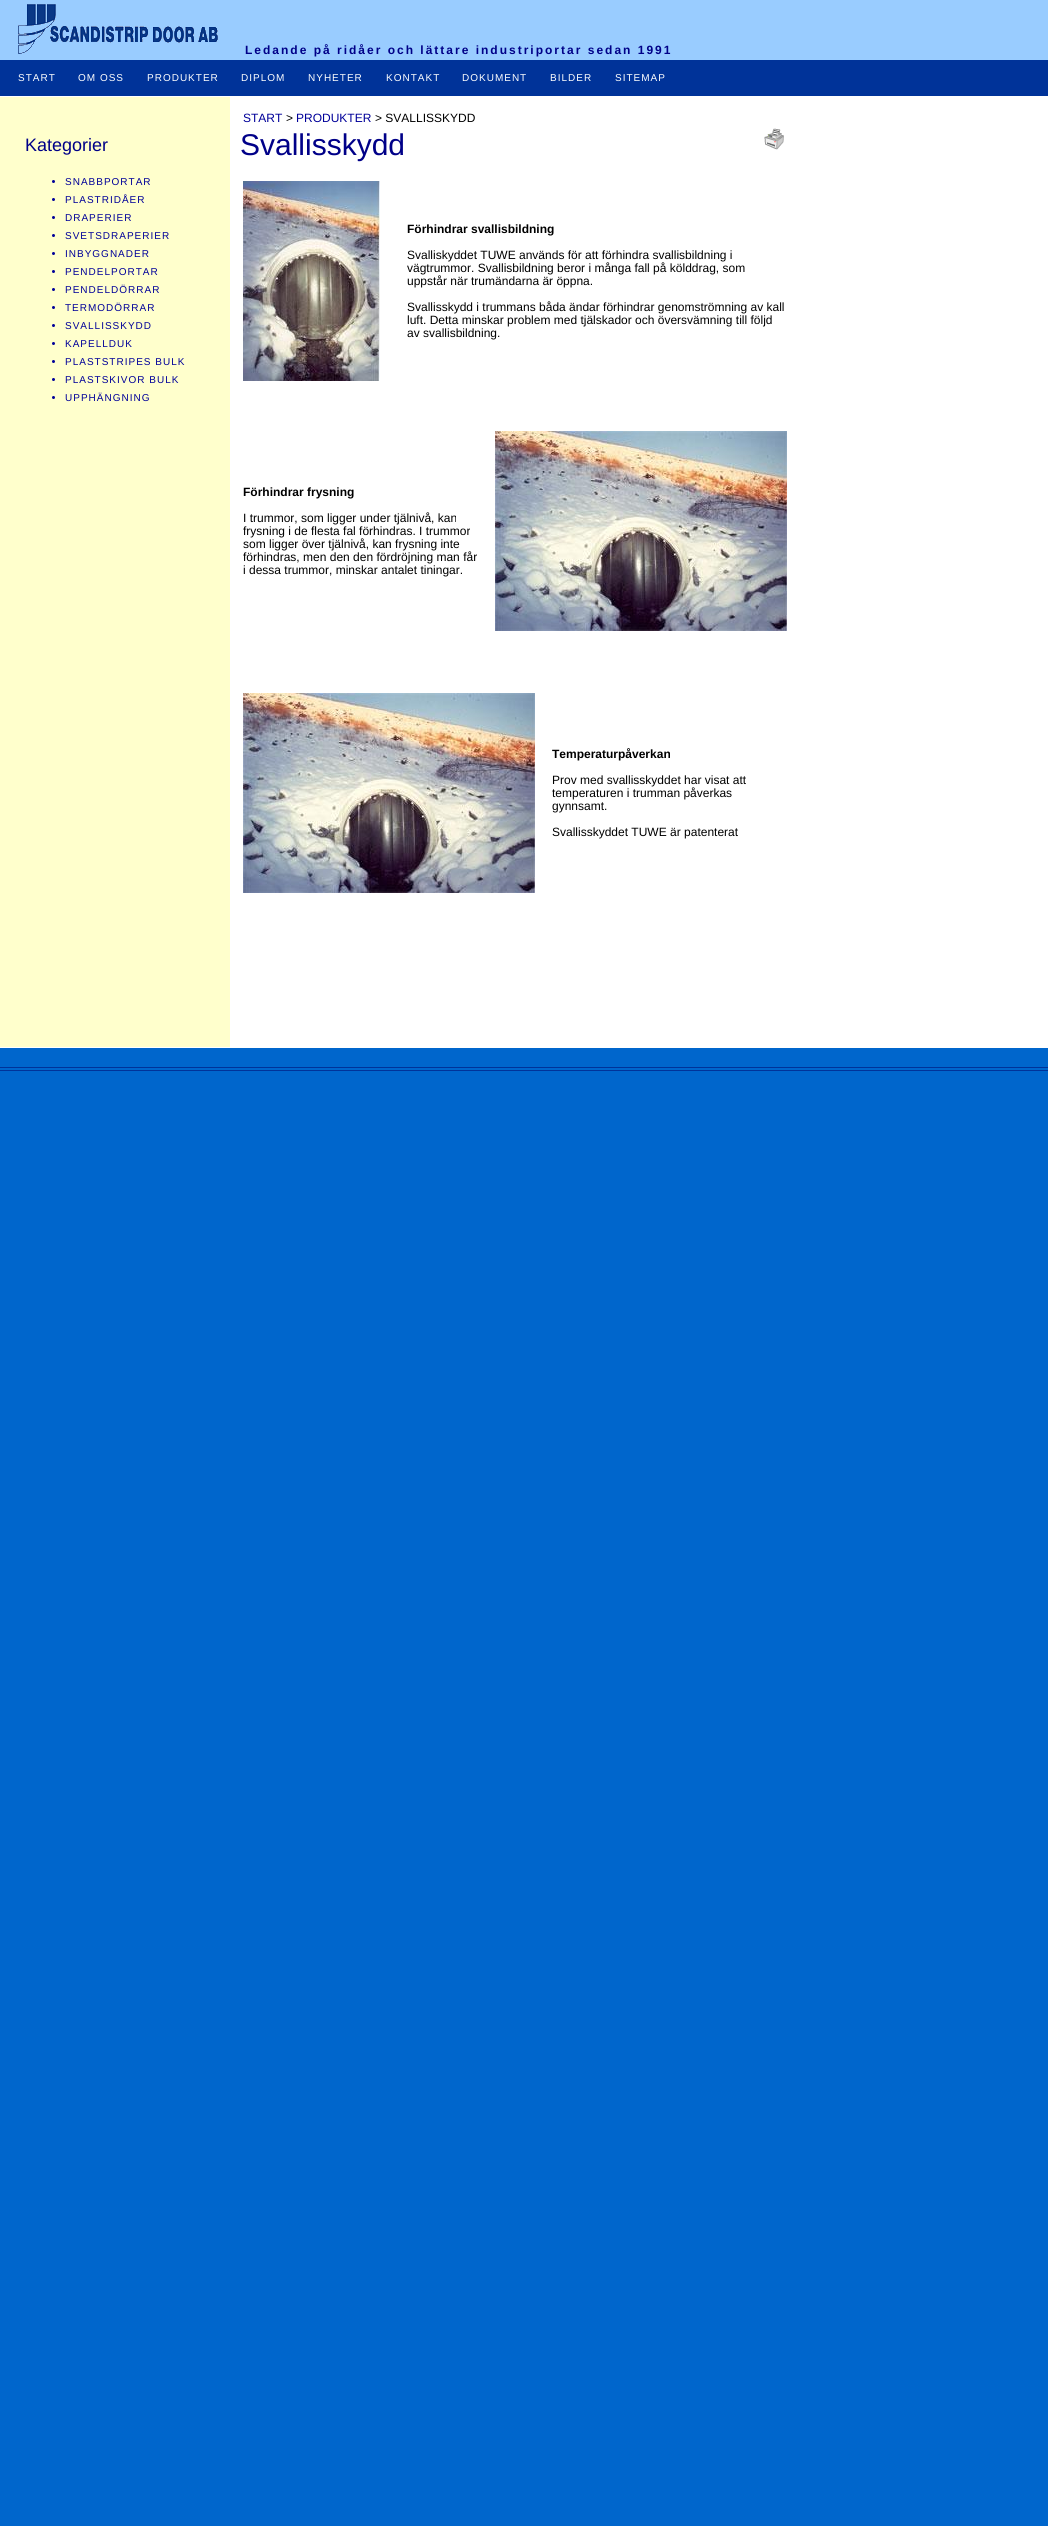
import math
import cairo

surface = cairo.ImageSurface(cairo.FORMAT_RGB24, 1048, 2526)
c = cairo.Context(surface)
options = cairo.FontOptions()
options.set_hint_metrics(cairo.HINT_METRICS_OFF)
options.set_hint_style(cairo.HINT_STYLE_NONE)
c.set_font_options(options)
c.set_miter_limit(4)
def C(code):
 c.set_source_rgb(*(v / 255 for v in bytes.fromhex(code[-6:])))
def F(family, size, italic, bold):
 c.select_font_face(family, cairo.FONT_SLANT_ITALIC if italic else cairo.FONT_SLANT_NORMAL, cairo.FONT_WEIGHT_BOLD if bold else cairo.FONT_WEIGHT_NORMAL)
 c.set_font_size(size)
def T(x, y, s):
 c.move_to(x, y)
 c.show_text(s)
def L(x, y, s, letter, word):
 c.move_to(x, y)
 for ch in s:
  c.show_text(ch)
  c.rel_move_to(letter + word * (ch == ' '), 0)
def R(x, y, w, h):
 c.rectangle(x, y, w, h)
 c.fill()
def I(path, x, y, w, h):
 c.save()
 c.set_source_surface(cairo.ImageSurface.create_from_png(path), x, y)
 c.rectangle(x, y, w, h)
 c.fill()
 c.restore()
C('0066cc')
c.paint()
C('99ccff')
R(0,0,1048,60)
I('1.png',18,4,200,50)
F('Liberation Sans',12,0,1)
C('000088')
L(245,54,'Ledande på ridåer och lättare industriportar sedan 1991',2,0)
C('003399')
R(0,60,1048,36)
F('Liberation Sans',10,0,0)
C('ffffff')
L(18,81,'START',1,0)
L(78,81,'OM OSS',1,0)
L(147,81,'PRODUKTER',1,0)
L(241,81,'DIPLOM',1,0)
L(308,81,'NYHETER',1,0)
L(386,81,'KONTAKT',1,0)
L(462,81,'DOKUMENT',1,0)
L(550,81,'BILDER',1,0)
L(615,81,'SITEMAP',1,0)
R(0,96,1048,1)
R(230,97,818,950)
C('ffffcc')
R(0,97,230,950)
F('Liberation Sans',18,0,0)
C('000088')
T(25,151,'Kategorier')
C('000099')
c.new_path()
c.arc(53.5,181.5,1.5,0,2 * math.pi)
c.fill()
F('Liberation Sans',10,0,0)
L(65,185,'SNABBPORTAR',1,0)
c.new_path()
c.arc(53.5,199.5,1.5,0,2 * math.pi)
c.fill()
L(65,203,'PLASTRIDÅER',1,0)
c.new_path()
c.arc(53.5,217.5,1.5,0,2 * math.pi)
c.fill()
L(65,221,'DRAPERIER',1,0)
c.new_path()
c.arc(53.5,235.5,1.5,0,2 * math.pi)
c.fill()
L(65,239,'SVETSDRAPERIER',1,0)
c.new_path()
c.arc(53.5,253.5,1.5,0,2 * math.pi)
c.fill()
L(65,257,'INBYGGNADER',1,0)
c.new_path()
c.arc(53.5,271.5,1.5,0,2 * math.pi)
c.fill()
L(65,275,'PENDELPORTAR',1,0)
c.new_path()
c.arc(53.5,289.5,1.5,0,2 * math.pi)
c.fill()
L(65,293,'PENDELDÖRRAR',1,0)
c.new_path()
c.arc(53.5,307.5,1.5,0,2 * math.pi)
c.fill()
L(65,311,'TERMODÖRRAR',1,0)
c.new_path()
c.arc(53.5,325.5,1.5,0,2 * math.pi)
c.fill()
L(65,329,'SVALLISSKYDD',1,0)
c.new_path()
c.arc(53.5,343.5,1.5,0,2 * math.pi)
c.fill()
L(65,347,'KAPELLDUK',1,0)
c.new_path()
c.arc(53.5,361.5,1.5,0,2 * math.pi)
c.fill()
L(65,365,'PLASTSTRIPES BULK',1,0)
c.new_path()
c.arc(53.5,379.5,1.5,0,2 * math.pi)
c.fill()
L(65,383,'PLASTSKIVOR BULK',1,0)
c.new_path()
c.arc(53.5,397.5,1.5,0,2 * math.pi)
c.fill()
L(65,401,'UPPHÄNGNING',1,0)
F('Liberation Sans',12,0,0)
T(243,122,'START')
C('000000')
T(286,122,'>')
C('000099')
T(296,122,'PRODUKTER')
C('000000')
T(375,122,'> SVALLISSKYDD')
F('Liberation Sans',30,0,0)
C('000088')
T(240,155,'Svallisskydd')
I('2.png',764,128,20,22)
I('3.png',243,181,137,200)
F('Liberation Sans',12,0,1)
C('000000')
T(407,233,'Förhindrar svallisbildning')
F('Liberation Sans',12,0,0)
T(407,259,'Svalliskyddet TUWE används för att förhindra svallisbildning i')
T(407,272,'vägtrummor. Svallisbildning beror i många fall på kölddrag, som')
T(407,285,'uppstår när trumändarna är öppna.')
T(407,311,'Svallisskydd i trummans båda ändar förhindrar genomströmning av kall')
T(407,324,'luft. Detta minskar problem med tjälskador och översvämning till följd')
T(407,337,'av svallisbildning.')
F('Liberation Sans',12,0,1)
T(243,496,'Förhindrar frysning')
F('Liberation Sans',12,0,0)
T(243,522,'I trummor, som ligger under tjälnivå, kan')
T(243,535,'frysning i de flesta fal förhindras. I trummor')
T(243,548,'som ligger över tjälnivå, kan frysning inte')
T(243,561,'förhindras, men den den fördröjning man får')
T(243,574,'i dessa trummor, minskar antalet tiningar.')
I('4.png',495,431,292,200)
I('4.png',243,693,292,200)
F('Liberation Sans',12,0,1)
T(552,758,'Temperaturpåverkan')
F('Liberation Sans',12,0,0)
T(552,784,'Prov med svallisskyddet har visat att')
T(552,797,'temperaturen i trumman påverkas')
T(552,810,'gynnsamt.')
T(552,836,'Svallisskyddet TUWE är patenterat')
C('ffffff')
R(0,1047,1048,1)
C('003399')
R(0,1067,1048,1)
R(0,1070,1048,1)
surface.write_to_png('o.png')
